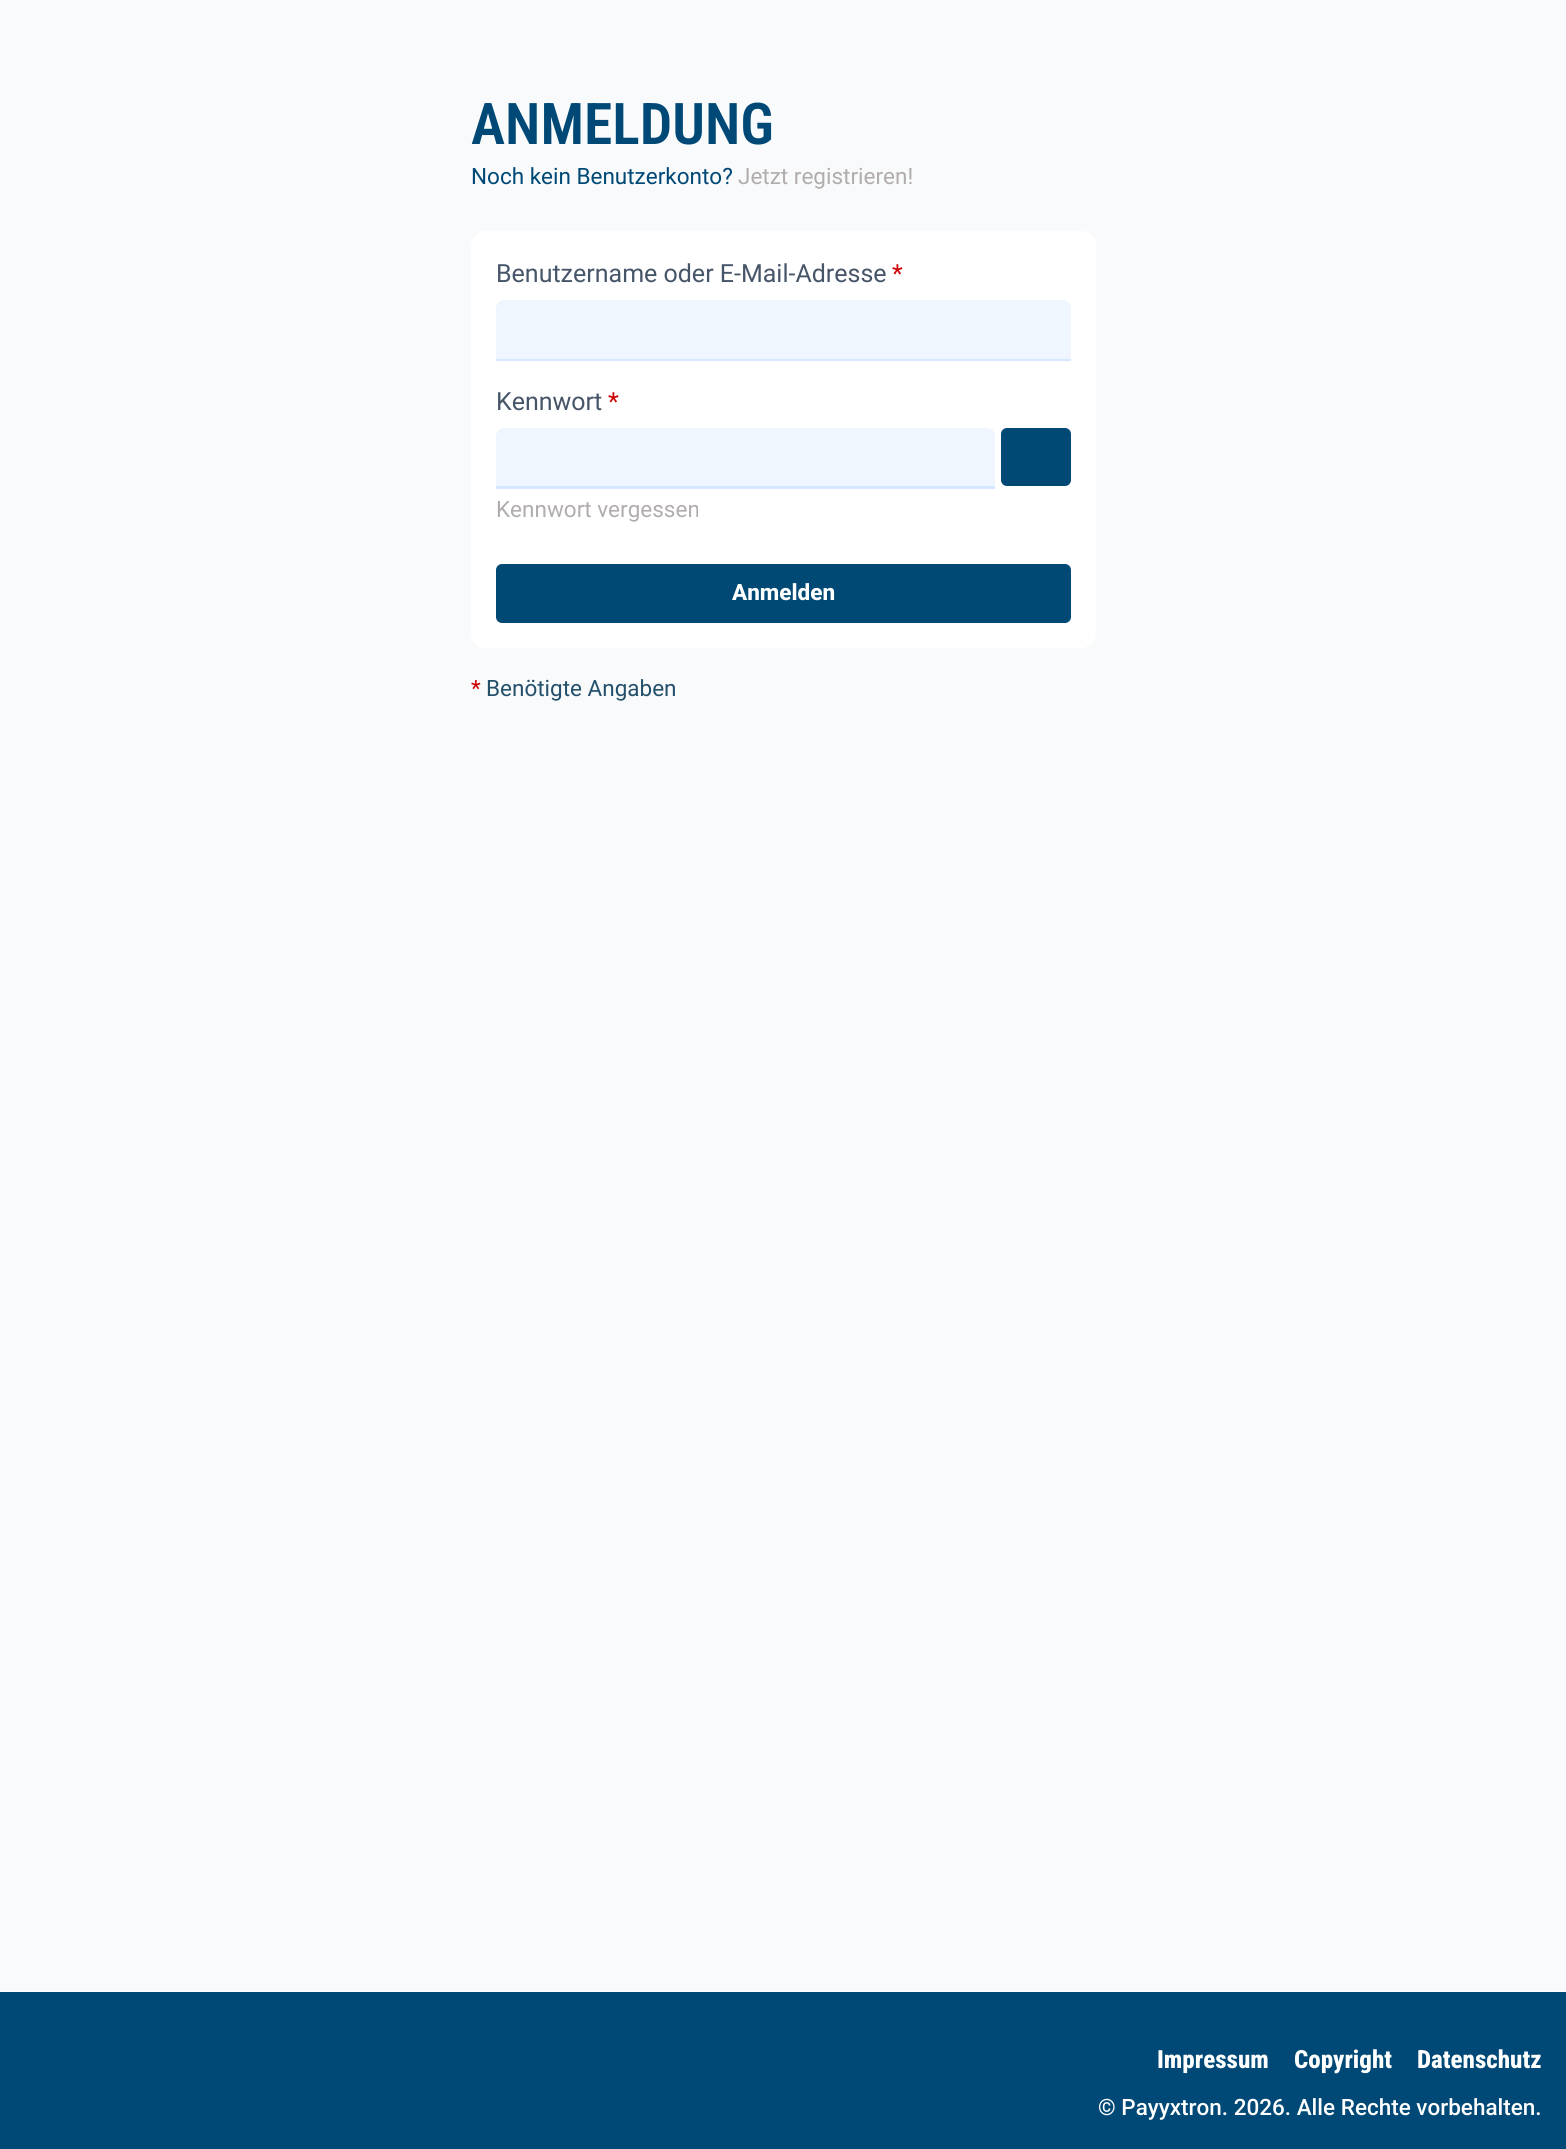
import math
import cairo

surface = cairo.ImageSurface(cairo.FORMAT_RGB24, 1566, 2149)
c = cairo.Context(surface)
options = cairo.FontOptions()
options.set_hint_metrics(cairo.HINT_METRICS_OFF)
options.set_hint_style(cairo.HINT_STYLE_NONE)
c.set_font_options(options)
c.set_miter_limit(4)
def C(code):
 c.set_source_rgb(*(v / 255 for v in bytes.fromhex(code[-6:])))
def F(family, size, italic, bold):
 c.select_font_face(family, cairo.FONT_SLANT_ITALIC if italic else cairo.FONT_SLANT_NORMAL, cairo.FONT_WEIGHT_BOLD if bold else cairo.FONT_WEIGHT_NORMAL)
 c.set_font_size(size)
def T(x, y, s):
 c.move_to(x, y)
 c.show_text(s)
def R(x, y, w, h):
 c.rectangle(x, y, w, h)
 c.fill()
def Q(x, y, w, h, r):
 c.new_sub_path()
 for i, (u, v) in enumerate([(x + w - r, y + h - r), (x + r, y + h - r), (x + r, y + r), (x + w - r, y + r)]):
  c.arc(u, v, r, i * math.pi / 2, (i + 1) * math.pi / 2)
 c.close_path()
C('f9fafb')
c.paint()
F('Roboto Condensed SemiBold',57.5,0,0)
C('004875')
T(471,144,'ANMELDUNG')
F('Roboto',22.5,0,0)
T(471,184,'Noch kein Benutzerkonto?')
C('b1adac')
T(738,184,'Jetzt registrieren!')
C('ffffff')
Q(471,231,625,417,15)
c.fill()
F('Roboto',25,0,0)
C('475569')
T(496,282,'Benutzername oder E-Mail-Adresse')
C('cc0001')
T(892,282,'*')
C('d6e8ff')
c.new_path()
c.move_to(496,309)
c.line_to(496,361)
c.line_to(1071,361)
c.line_to(1071,359)
c.line_to(496,359)
c.close_path()
c.fill()
C('eff6ff')
c.new_path()
c.move_to(504,300.5)
c.line_to(1063,300.5)
c.curve_to(1067,300.5,1070.5,304,1070.5,308)
c.line_to(1070.5,358.5)
c.line_to(496.5,358.5)
c.line_to(496.5,308)
c.curve_to(496.5,304,500,300.5,504,300.5)
c.close_path()
c.fill_preserve()
c.set_line_width(1)
c.stroke()
C('475569')
T(496,410,'Kennwort')
C('cc0001')
T(608,410,'*')
C('d6e8ff')
c.new_path()
c.move_to(496,436)
c.line_to(496,489)
c.line_to(995,489)
c.line_to(995,486)
c.line_to(496,486)
c.close_path()
c.fill()
C('eff6ff')
c.new_path()
c.move_to(504,428.5)
c.line_to(987,428.5)
c.curve_to(991,428.5,994.5,432,994.5,436)
c.line_to(994.5,485.5)
c.line_to(496.5,485.5)
c.line_to(496.5,436)
c.curve_to(496.5,432,500,428.5,504,428.5)
c.close_path()
c.fill_preserve()
c.stroke()
C('004975')
Q(1001,428,70,58,6)
c.fill()
F('Roboto',22.5,0,0)
C('b1adac')
T(496,517,'Kennwort vergessen')
C('004975')
Q(496,564,575,59,6)
c.fill()
F('Roboto ExtraBold',22.5,0,0)
C('ffffff')
T(732,600,'Anmelden')
F('Roboto',22.5,0,0)
C('cc0001')
T(471,696,'*')
C('24506b')
T(486,696,'Benötigte Angaben')
C('004875')
R(0,1992,1566,157)
C('ffffff')
R(0,1991,1566,1)
F('Roboto Condensed ExtraBold',25,0,0)
T(1157,2068,'Impressum')
T(1294,2068,'Copyright')
T(1417,2068,'Datenschutz')
F('Roboto Medium',22.5,0,0)
T(1098,2115,'© Payyxtron. 2026. Alle Rechte vorbehalten.')
surface.write_to_png('o.png')
